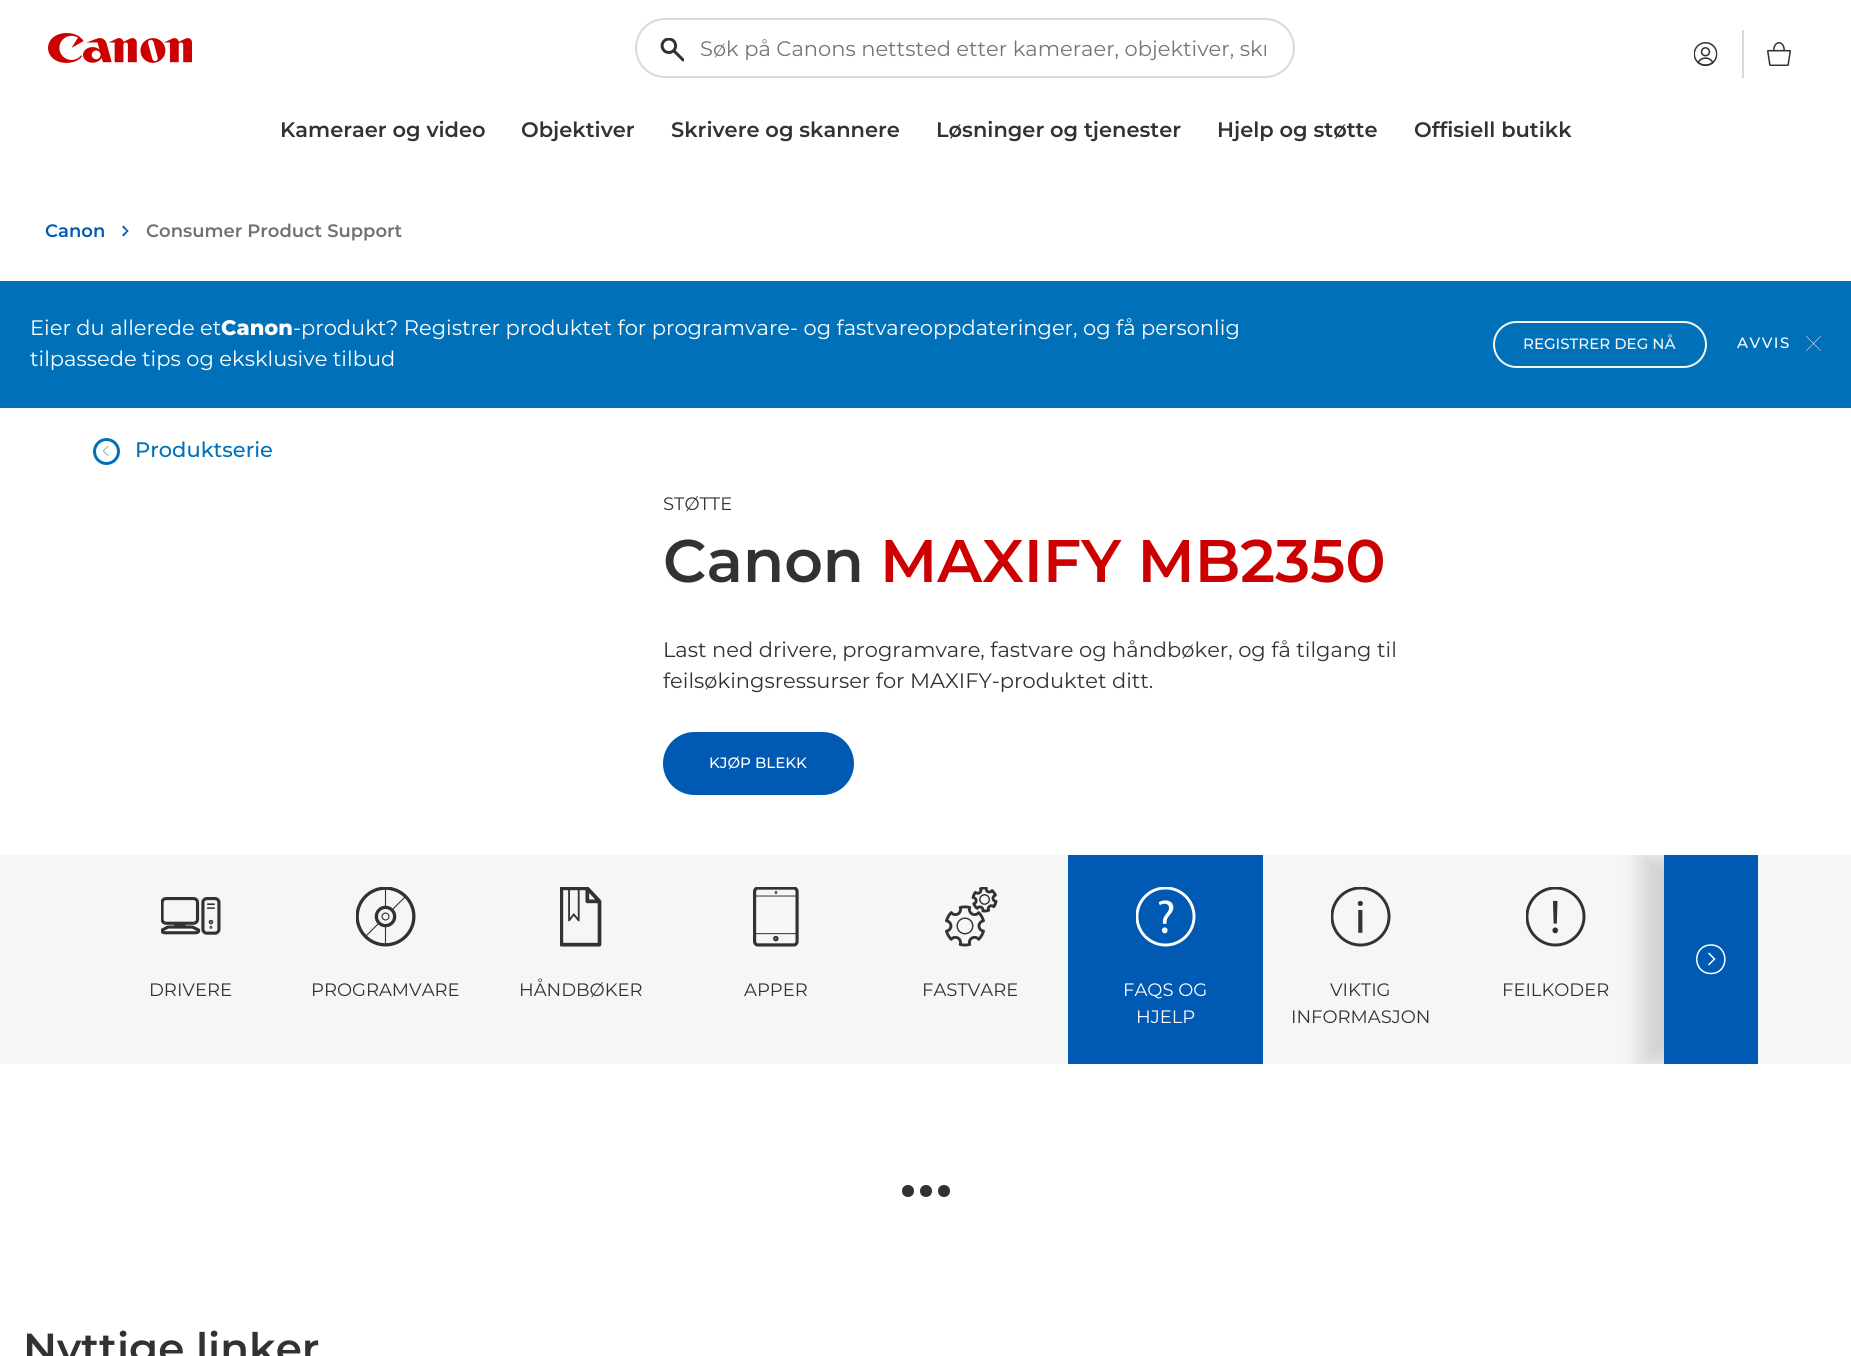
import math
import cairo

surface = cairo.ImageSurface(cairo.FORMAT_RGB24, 1851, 1356)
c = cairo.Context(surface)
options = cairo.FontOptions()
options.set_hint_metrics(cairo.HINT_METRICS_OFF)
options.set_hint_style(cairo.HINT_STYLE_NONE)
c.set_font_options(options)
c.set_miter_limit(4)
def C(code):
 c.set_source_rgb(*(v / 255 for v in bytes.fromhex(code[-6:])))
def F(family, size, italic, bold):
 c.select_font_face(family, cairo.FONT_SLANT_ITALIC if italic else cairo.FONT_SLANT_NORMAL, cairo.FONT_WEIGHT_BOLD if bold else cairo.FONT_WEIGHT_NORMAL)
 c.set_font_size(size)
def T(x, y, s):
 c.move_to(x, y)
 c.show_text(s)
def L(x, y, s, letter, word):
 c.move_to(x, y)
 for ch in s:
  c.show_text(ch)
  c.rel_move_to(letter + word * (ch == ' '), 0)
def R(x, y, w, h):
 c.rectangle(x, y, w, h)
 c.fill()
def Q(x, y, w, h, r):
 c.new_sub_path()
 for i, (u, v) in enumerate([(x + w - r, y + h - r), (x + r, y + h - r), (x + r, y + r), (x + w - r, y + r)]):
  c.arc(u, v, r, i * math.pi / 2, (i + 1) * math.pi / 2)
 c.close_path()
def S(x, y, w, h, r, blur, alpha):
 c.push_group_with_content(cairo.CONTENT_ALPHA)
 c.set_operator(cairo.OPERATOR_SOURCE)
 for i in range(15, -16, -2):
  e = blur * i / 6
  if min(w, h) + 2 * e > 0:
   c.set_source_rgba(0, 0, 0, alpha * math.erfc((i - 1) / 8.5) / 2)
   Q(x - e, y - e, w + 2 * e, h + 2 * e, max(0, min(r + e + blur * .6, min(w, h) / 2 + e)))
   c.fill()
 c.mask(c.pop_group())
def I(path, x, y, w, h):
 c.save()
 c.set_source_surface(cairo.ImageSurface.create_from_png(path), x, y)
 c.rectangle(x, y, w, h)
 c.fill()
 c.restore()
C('ffffff')
c.paint()
I('1.png',48,33,144,30)
Q(636,19,658,58,29)
C('d9d9d9')
c.stroke()
I('2.png',660,38,24,24)
c.save()
c.rectangle(699,35,567,27)
c.clip()
F('Montserrat',21,0,0)
C('757575')
T(700,56,'Søk på Canons nettsted etter kameraer, objektiver, skr')
c.restore()
R(1742,30,2,48)
I('3.png',1694,42,24,24)
I('4.png',1767,42,24,24)
F('Montserrat SemiBold',21,0,0)
C('323232')
T(280,137,'Kameraer og video')
T(521,137,'Objektiver')
T(671,137,'Skrivere og skannere')
T(936,137,'Løsninger og tjenester')
T(1217,137,'Hjelp og støtte')
T(1414,137,'Offisiell butikk')
F('Montserrat SemiBold',18,0,0)
C('005ab4')
T(45,237,'Canon')
c.new_path()
c.move_to(123.5,225.5)
c.line_to(128.5,231)
c.line_to(127.5,232)
c.line_to(122,227)
c.close_path()
c.fill()
c.new_path()
c.move_to(127.5,230)
c.line_to(128.5,231)
c.line_to(123.5,236.5)
c.line_to(122,235)
c.close_path()
c.fill()
C('6e7276')
T(146,237,'Consumer Product Support')
C('0071b8')
R(0,281,1851,127)
F('Montserrat',21,0,0)
C('ffffff')
T(30,335,'Eier du allerede et')
F('Montserrat ExtraBold',21,0,0)
T(221,335,'Canon')
F('Montserrat',21,0,0)
T(293,335,'-produkt? Registrer produktet for programvare- og fastvareoppdateringer, og få personlig')
T(30,366,'tilpassede tips og eksklusive tilbud')
Q(1494,322,212,45,22.5)
C('f5f6f6')
c.stroke()
F('Montserrat Medium',15,0,0)
T(1523,349,'REGISTRER DEG NÅ')
C('ffffff')
L(1737,348,'AVVIS',1.5,0)
I('5.png',1806,336,15,15)
c.arc(106.5,451.5,12,0,2 * math.pi)
C('0071b8')
c.set_line_width(3)
c.stroke()
I('6.png',103,445,6,11)
F('Montserrat Medium',21,0,0)
T(135,457,'Produktserie')
F('Montserrat',18,0,0)
C('323232')
T(663,510,'STØTTE')
F('Montserrat SemiBold',60,0,0)
T(663,582,'Canon')
C('cc0000')
T(880,582,'MAXIFY MB2350')
F('Montserrat',21,0,0)
C('323232')
T(663,657,'Last ned drivere, programvare, fastvare og håndbøker, og få tilgang til')
T(663,688,'feilsøkingsressurser for MAXIFY-produktet ditt.')
C('005ab4')
Q(664,733,189,61,30.5)
c.fill_preserve()
c.set_line_width(2)
c.stroke()
F('Montserrat Medium',15,0,0)
C('ffffff')
T(709,768,'KJØP BLEKK')
C('f5f6f6')
R(0,855,1851,209)
I('7.png',161,897,60,38)
F('Montserrat',18,0,0)
C('323232')
T(149,996,'DRIVERE')
I('8.png',356,887,60,60)
T(311,996,'PROGRAMVARE')
I('9.png',560,887,42,60)
T(519,996,'HÅNDBØKER')
I('10.png',753,887,46,60)
T(744,996,'APPER')
I('11.png',945,887,53,60)
T(922,996,'FASTVARE')
C('005ab4')
R(1068,855,195,209)
I('12.png',1136,887,60,60)
C('ffffff')
T(1123,996,'FAQS OG')
T(1136,1023,'HJELP')
I('13.png',1331,887,60,60)
C('323232')
T(1330,996,'VIKTIG')
T(1291,1023,'INFORMASJON')
I('14.png',1526,887,60,60)
T(1502,996,'FEILKODER')
c.save()
c.rectangle(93,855,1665,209)
c.clip()
C('000000')
S(1641,855,95,209,0,11,.15)
c.restore()
C('005ab4')
R(1664,855,94,209)
c.new_path()
c.move_to(1711,973.5)
c.curve_to(1729.5,973.5,1729.5,945,1711,945)
c.curve_to(1692,945,1692,973.5,1711,973.5)
c.close_path()
c.move_to(1708.5,953)
c.line_to(1714.5,959)
c.line_to(1708.5,965)
C('ffffff')
c.set_line_width(1.5)
c.stroke()
C('323232')
c.arc(908,1191,5,0,2 * math.pi)
c.fill_preserve()
c.set_line_width(2)
c.stroke()
c.arc(926,1191,5,0,2 * math.pi)
c.fill_preserve()
c.stroke()
c.arc(944,1191,5,0,2 * math.pi)
c.fill_preserve()
c.stroke()
F('Montserrat SemiBold',42,0,0)
T(23,1363,'Nyttige linker')
surface.write_to_png('o.png')
